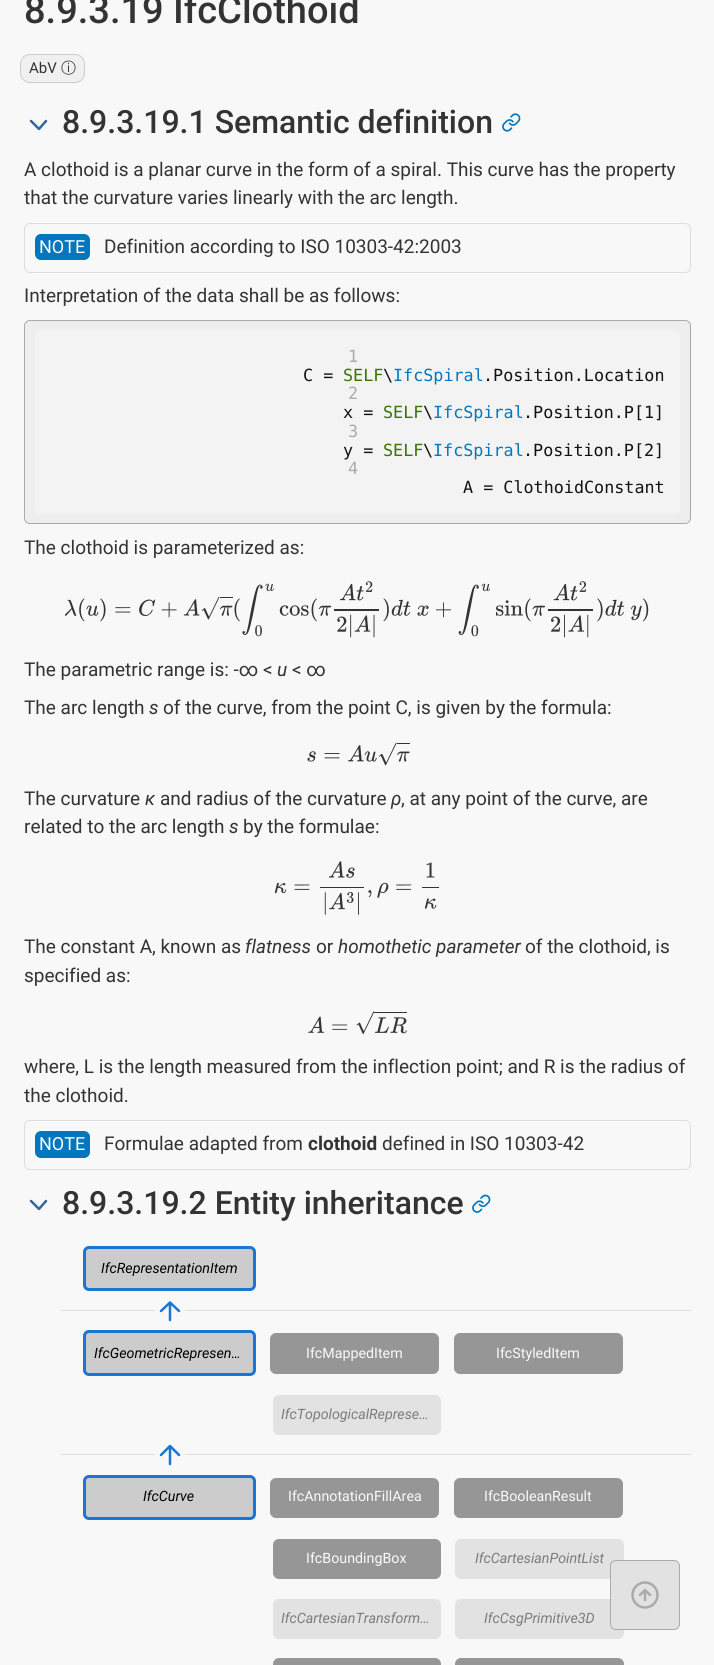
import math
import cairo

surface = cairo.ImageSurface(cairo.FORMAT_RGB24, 714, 1665)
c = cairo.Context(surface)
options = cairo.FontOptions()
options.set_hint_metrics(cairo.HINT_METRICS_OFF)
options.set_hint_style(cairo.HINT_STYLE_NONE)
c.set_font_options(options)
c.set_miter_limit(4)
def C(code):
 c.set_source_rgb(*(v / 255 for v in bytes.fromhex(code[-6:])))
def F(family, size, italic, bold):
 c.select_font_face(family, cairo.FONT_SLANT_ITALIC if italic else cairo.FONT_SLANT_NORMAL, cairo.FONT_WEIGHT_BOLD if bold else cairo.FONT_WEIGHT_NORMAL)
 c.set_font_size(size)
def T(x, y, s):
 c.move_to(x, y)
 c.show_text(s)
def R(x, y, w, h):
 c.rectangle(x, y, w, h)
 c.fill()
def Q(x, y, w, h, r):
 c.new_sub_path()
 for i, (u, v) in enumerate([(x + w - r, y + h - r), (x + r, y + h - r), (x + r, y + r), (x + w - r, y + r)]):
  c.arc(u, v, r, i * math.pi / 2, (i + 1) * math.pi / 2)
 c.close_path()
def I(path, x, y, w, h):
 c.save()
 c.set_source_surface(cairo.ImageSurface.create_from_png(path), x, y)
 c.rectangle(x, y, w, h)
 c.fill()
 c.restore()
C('f8f8f8')
c.paint()
F('Roboto Medium',38,0,0)
C('333333')
T(24,23,'8.9.3.19 IfcClothoid')
C('f0f0f0')
Q(20.5,54.5,64,28,9.5)
c.fill_preserve()
C('cccccc')
c.set_line_width(1)
c.stroke()
F('Roboto',15,0,0)
C('333333')
T(29,73,'AbV')
F('WenQuanYi Zen Hei Medium',15,0,0)
T(61,73,'ⓘ')
c.new_path()
c.move_to(31,121)
c.line_to(39,129)
c.line_to(46,121)
C('336699')
c.set_line_width(2.5)
c.set_line_cap(cairo.LINE_CAP_ROUND)
c.set_line_join(cairo.LINE_JOIN_ROUND)
c.stroke()
F('Roboto Medium',32,0,0)
C('333333')
T(62,133,'8.9.3.19.1 Semantic definition')
I('1.png',502,113,19,19)
F('Roboto',19,0,0)
T(24,176,'A clothoid is a planar curve in the form of a spiral. This curve has the property')
T(24,204,'that the curvature varies linearly with the arc length.')
Q(24.5,223.5,666,49,5.5)
C('dddddd')
c.set_line_width(1)
c.set_line_cap(cairo.LINE_CAP_BUTT)
c.set_line_join(cairo.LINE_JOIN_MITER)
c.stroke()
C('0277bd')
Q(35,234,55,26,6)
c.fill()
F('Roboto',18,0,0)
C('fafafa')
T(39,253,'NOTE')
F('Roboto',19,0,0)
C('333333')
T(104,253,'Definition according to ISO 10303-42:2003')
T(24,302,'Interpretation of the data shall be as follows:')
C('eeeeee')
Q(24.5,320.5,666,203,5.5)
c.fill_preserve()
C('aaaaaa')
c.stroke()
C('f3f3f3')
Q(35,330,645,184,6)
c.fill()
F('DejaVu Sans Mono',16.75,0,0)
C('aaaaaa')
T(348,362,'1')
C('111111')
T(303,381,'C =')
C('397300')
T(343,381,'SELF')
C('111111')
T(383,381,'\\')
C('0277bd')
T(393,381,'IfcSpiral')
C('111111')
T(483,381,'.Position.Location')
C('aaaaaa')
T(348,399,'2')
C('111111')
T(343,418,'x =')
C('397300')
T(383,418,'SELF')
C('111111')
T(423,418,'\\')
C('0277bd')
T(433,418,'IfcSpiral')
C('111111')
T(523,418,'.Position.P[1]')
C('aaaaaa')
T(348,437,'3')
C('111111')
T(343,456,'y =')
C('397300')
T(383,456,'SELF')
C('111111')
T(423,456,'\\')
C('0277bd')
T(433,456,'IfcSpiral')
C('111111')
T(523,456,'.Position.P[2]')
C('aaaaaa')
T(348,474,'4')
C('111111')
T(463,493,'A = ClothoidConstant')
F('Roboto',19,0,0)
C('333333')
T(24,554,'The clothoid is parameterized as:')
I('2.png',64,581,585,57)
T(24,676,'The parametric range is: -∞ <')
F('Roboto',19,1,0)
T(277,676,'u')
F('Roboto',19,0,0)
T(292,676,'< ∞')
T(24,714,'The arc length')
F('Roboto',19,1,0)
T(149,714,'s')
F('Roboto',19,0,0)
T(163,714,'of the curve, from the point C, is given by the formula:')
I('3.png',307,742,103,24)
T(24,805,'The curvature')
F('Roboto',19,1,0)
T(145,805,'κ')
F('Roboto',19,0,0)
T(160,805,'and radius of the curvature')
F('Roboto',19,1,0)
T(391,805,'ρ')
F('Roboto',19,0,0)
T(401,805,', at any point of the curve, are')
T(24,833,'related to the arc length')
F('Roboto',19,1,0)
T(229,833,'s')
F('Roboto',19,0,0)
T(243,833,'by the formulae:')
I('4.png',274,861,165,54)
T(24,953,'The constant A, known as')
F('Roboto',19,1,0)
T(245,953,'flatness')
F('Roboto',19,0,0)
T(316,953,'or')
F('Roboto',19,1,0)
T(338,953,'homothetic parameter')
F('Roboto',19,0,0)
T(525,953,'of the clothoid, is')
T(24,982,'specified as:')
I('5.png',308,1011,99,23)
T(24,1073,'where, L is the length measured from the inflection point; and R is the radius of')
T(24,1102,'the clothoid.')
Q(24.5,1120.5,666,49,5.5)
C('dddddd')
c.stroke()
C('0277bd')
Q(35,1131,55,27,6)
c.fill()
F('Roboto',18,0,0)
C('fafafa')
T(39,1150,'NOTE')
F('Roboto',19,0,0)
C('333333')
T(104,1150,'Formulae adapted from')
F('Roboto',19,0,1)
T(308,1150,'clothoid')
F('Roboto',19,0,0)
T(382,1150,'defined in ISO 10303-42')
c.new_path()
c.move_to(31,1201)
c.line_to(39,1209)
c.line_to(46,1201)
C('336699')
c.set_line_width(2.5)
c.set_line_cap(cairo.LINE_CAP_ROUND)
c.set_line_join(cairo.LINE_JOIN_ROUND)
c.stroke()
F('Roboto Medium',32,0,0)
C('333333')
T(62,1214,'8.9.3.19.2 Entity inheritance')
I('6.png',472,1194,19,19)
C('dddddd')
R(61,1310,630,1)
C('cccccc')
Q(84.5,1247.5,170,42,4.5)
c.fill_preserve()
C('1976d2')
c.set_line_width(3)
c.set_line_cap(cairo.LINE_CAP_BUTT)
c.set_line_join(cairo.LINE_JOIN_MITER)
c.stroke()
F('Roboto',14.25,1,0)
C('000000')
T(101,1273,'IfcRepresentationItem')
C('dddddd')
R(61,1454,630,1)
C('f8f8f8')
R(155,1310,30,1)
c.new_path()
c.move_to(170,1320)
c.line_to(170,1302.5)
c.move_to(161,1311)
c.line_to(170,1302.5)
c.line_to(179,1311)
C('1976d2')
c.set_line_width(2.5)
c.set_line_cap(cairo.LINE_CAP_ROUND)
c.set_line_join(cairo.LINE_JOIN_ROUND)
c.stroke()
C('cccccc')
Q(84.5,1331.5,170,43,4.5)
c.fill_preserve()
C('1976d2')
c.set_line_width(3)
c.set_line_cap(cairo.LINE_CAP_BUTT)
c.set_line_join(cairo.LINE_JOIN_MITER)
c.stroke()
C('000000')
T(94,1358,'IfcGeometricRepresen…')
C('969696')
Q(270,1333,169,41,6)
c.fill()
F('Roboto',14.25,0,0)
C('fafafa')
T(306,1358,'IfcMappedItem')
C('969696')
Q(454,1333,169,41,6)
c.fill()
C('fafafa')
T(496,1358,'IfcStyledItem')
C('e2e2e2')
Q(273,1395,168,40,6)
c.fill()
F('Roboto',14.25,1,0)
C('7c7c7c')
T(281,1419,'IfcTopologicalReprese…')
C('f8f8f8')
R(155,1454,30,1)
c.new_path()
c.move_to(170,1464)
c.line_to(170,1446)
c.move_to(161,1455)
c.line_to(170,1446)
c.line_to(179,1455)
C('1976d2')
c.set_line_width(2.5)
c.set_line_cap(cairo.LINE_CAP_ROUND)
c.set_line_join(cairo.LINE_JOIN_ROUND)
c.stroke()
C('cccccc')
Q(84.5,1476.5,170,42,4.5)
c.fill_preserve()
C('1976d2')
c.set_line_width(3)
c.set_line_cap(cairo.LINE_CAP_BUTT)
c.set_line_join(cairo.LINE_JOIN_MITER)
c.stroke()
C('000000')
T(143,1501,'IfcCurve')
C('969696')
Q(270,1478,169,40,6)
c.fill()
F('Roboto',14.25,0,0)
C('fafafa')
T(288,1501,'IfcAnnotationFillArea')
C('969696')
Q(454,1478,169,40,6)
c.fill()
C('fafafa')
T(484,1501,'IfcBooleanResult')
C('969696')
Q(273,1539,168,40,6)
c.fill()
C('fafafa')
T(306,1563,'IfcBoundingBox')
C('e2e2e2')
Q(455,1539,169,40,6)
c.fill()
F('Roboto',14.25,1,0)
C('7c7c7c')
T(475,1563,'IfcCartesianPointList')
C('e2e2e2')
Q(273,1599,168,40,6)
c.fill()
C('7c7c7c')
T(281,1623,'IfcCartesianTransform…')
C('e2e2e2')
Q(455,1599,169,40,6)
c.fill()
C('7c7c7c')
T(484,1623,'IfcCsgPrimitive3D')
C('969696')
Q(273,1658,168,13,6)
c.fill()
Q(455,1658,169,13,6)
c.fill()
C('e2e2e2')
Q(610.5,1560.5,69,69,5.5)
c.fill_preserve()
C('aaaaaa')
c.set_line_width(1)
c.stroke()
c.arc(645,1595,12.5,0,2 * math.pi)
c.set_line_width(2.5)
c.stroke()
c.new_path()
c.move_to(650,1595)
c.line_to(645,1590)
c.line_to(640,1595)
c.move_to(645,1600)
c.line_to(645,1590)
c.set_line_cap(cairo.LINE_CAP_ROUND)
c.set_line_join(cairo.LINE_JOIN_ROUND)
c.stroke()
surface.write_to_png('o.png')
